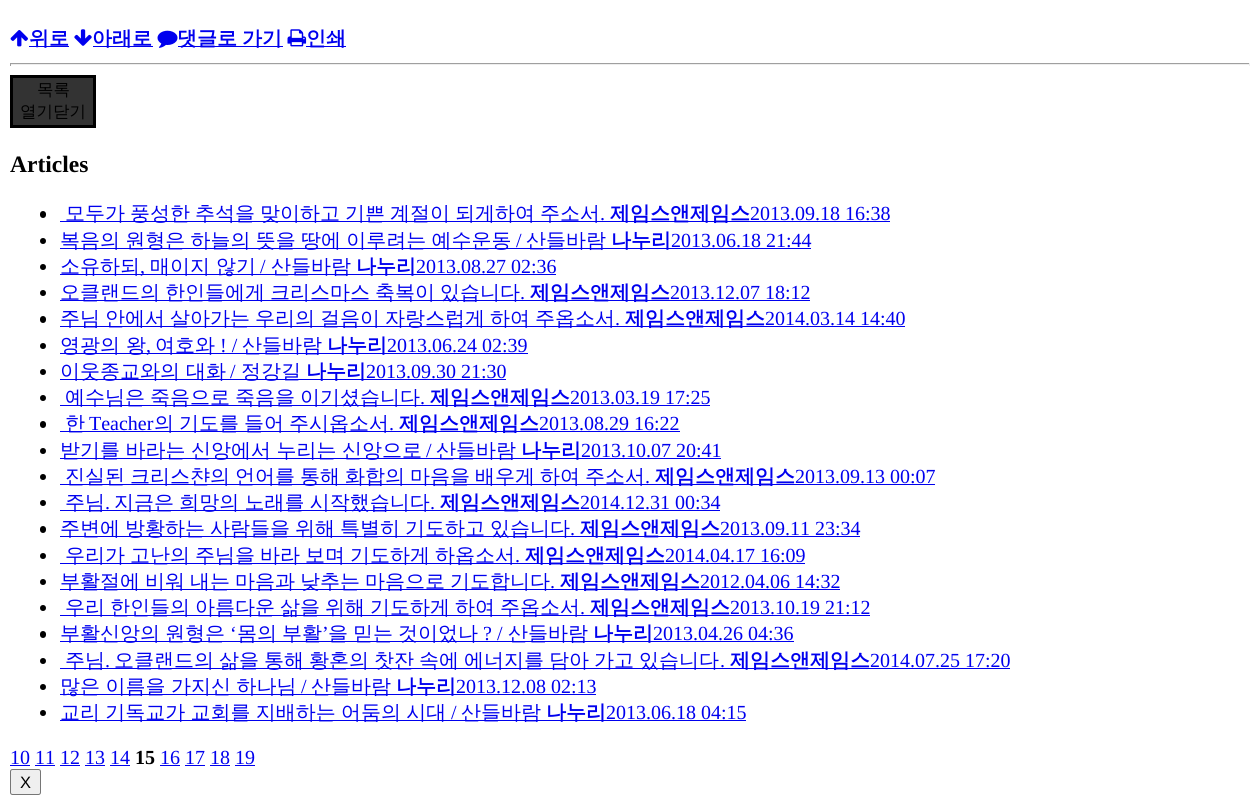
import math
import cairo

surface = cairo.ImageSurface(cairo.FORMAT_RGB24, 1259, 805)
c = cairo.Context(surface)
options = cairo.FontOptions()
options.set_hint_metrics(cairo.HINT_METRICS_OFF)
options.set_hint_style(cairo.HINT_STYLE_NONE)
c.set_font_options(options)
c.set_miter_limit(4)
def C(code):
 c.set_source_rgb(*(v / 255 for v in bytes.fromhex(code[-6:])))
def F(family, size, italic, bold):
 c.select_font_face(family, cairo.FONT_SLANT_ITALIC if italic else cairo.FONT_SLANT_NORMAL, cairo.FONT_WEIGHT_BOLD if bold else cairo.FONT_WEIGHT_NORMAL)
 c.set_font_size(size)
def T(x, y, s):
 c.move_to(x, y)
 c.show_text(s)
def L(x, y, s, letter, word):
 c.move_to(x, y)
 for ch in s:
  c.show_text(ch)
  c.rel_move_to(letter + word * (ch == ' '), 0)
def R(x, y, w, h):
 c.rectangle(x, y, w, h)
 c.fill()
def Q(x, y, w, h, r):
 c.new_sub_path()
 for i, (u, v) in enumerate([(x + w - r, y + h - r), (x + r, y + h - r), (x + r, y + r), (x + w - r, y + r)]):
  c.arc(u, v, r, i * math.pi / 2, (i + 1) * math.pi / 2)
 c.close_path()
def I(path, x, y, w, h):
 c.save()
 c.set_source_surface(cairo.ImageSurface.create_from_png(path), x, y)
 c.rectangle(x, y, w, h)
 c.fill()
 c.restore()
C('ffffff')
c.paint()
I('1.png',10,30,18,17)
C('0000ee')
R(29,46,40,1)
F('WenQuanYi Zen Hei',20,0,1)
T(29,45,'위로')
I('2.png',74,29,18,17)
R(93,46,60,1)
T(92,45,'아래로')
I('3.png',157,30,21,18)
R(178,46,105,1)
L(177,45,'댓글로 가기',0,-1)
I('4.png',287,29,20,18)
R(306,46,40,1)
T(306,45,'인쇄')
C('9f9f9f')
R(10,63,1240,1)
C('eeeeee')
R(1249,63,1,3)
R(10,64,1240,1)
C('9f9f9f')
R(10,63,1,3)
C('333333')
c.rectangle(11.5,76.5,83,50)
c.fill_preserve()
C('000000')
c.set_line_width(3)
c.stroke()
F('WenQuanYi Zen Hei Medium',16.5,0,0)
T(37,95,'목록')
T(20,117,'열기닫기')
F('Liberation Serif',23.5,0,1)
T(10,172,'Articles')
Q(40,211,6,7,3)
c.fill()
C('0000ee')
R(60,221,830,1)
F('WenQuanYi Zen Hei Medium',20,0,0)
L(65,220,'모두가 풍성한 추석을 맞이하고 기쁜 계절이 되게하여 주소서',0,-1)
F('WenQuanYi Zen Hei',20,0,1)
T(610,220,'제임스앤제임스')
F('Liberation Serif',20,0,0)
T(750,220,'2013.09.18 16:38')
T(600,220,'.')
C('000000')
c.new_path()
c.arc(43,241,3,0,2 * math.pi)
c.fill()
C('0000ee')
R(60,248,545,1)
F('WenQuanYi Zen Hei Medium',20,0,0)
L(60,247,'복음의 원형은 하늘의 뜻을 땅에 이루려는 예수운동',0,-.75)
F('Liberation Serif',20,0,0)
T(516,247,'/')
F('WenQuanYi Zen Hei Medium',20,0,0)
T(526,247,'산들바람')
R(605,248,206,1)
F('WenQuanYi Zen Hei',20,0,1)
T(611,247,'나누리')
F('Liberation Serif',20,0,0)
T(671,247,'2013.06.18 21:44')
C('000000')
c.new_path()
c.arc(43,267,3,0,2 * math.pi)
c.fill()
C('0000ee')
R(60,274,290,1)
F('WenQuanYi Zen Hei Medium',20,0,0)
T(60,273,'소유하되')
T(150,273,'매이지 않기')
F('Liberation Serif',20,0,0)
T(260,273,'/')
F('WenQuanYi Zen Hei Medium',20,0,0)
T(271,273,'산들바람')
R(350,274,206,1)
F('WenQuanYi Zen Hei',20,0,1)
T(356,273,'나누리')
F('Liberation Serif',20,0,0)
T(416,273,'2013.08.27 02:36')
T(140,273,',')
C('000000')
c.new_path()
c.arc(43,293,3,0,2 * math.pi)
c.fill()
C('0000ee')
R(60,300,750,1)
F('WenQuanYi Zen Hei Medium',20,0,0)
L(60,299,'오클랜드의 한인들에게 크리스마스 축복이 있습니다',0,-1)
F('WenQuanYi Zen Hei',20,0,1)
T(530,299,'제임스앤제임스')
F('Liberation Serif',20,0,0)
T(670,299,'2013.12.07 18:12')
T(520,299,'.')
C('000000')
Q(40,316,6,7,3)
c.fill()
C('0000ee')
R(60,326,845,1)
F('WenQuanYi Zen Hei Medium',20,0,0)
L(60,325,'주님 안에서 살아가는 우리의 걸음이 자랑스럽게 하여 주옵소서',0,-1)
F('WenQuanYi Zen Hei',20,0,1)
T(625,325,'제임스앤제임스')
F('Liberation Serif',20,0,0)
T(765,325,'2014.03.14 14:40')
T(615,325,'.')
C('000000')
c.new_path()
c.arc(43,346,3,0,2 * math.pi)
c.fill()
C('0000ee')
R(60,353,468,1)
F('WenQuanYi Zen Hei Medium',20,0,0)
T(60,352,'영광의 왕')
T(155,352,'여호와')
F('Liberation Serif',20,0,0)
T(220,352,'! /')
F('WenQuanYi Zen Hei Medium',20,0,0)
T(242,352,'산들바람')
F('WenQuanYi Zen Hei',20,0,1)
T(327,352,'나누리')
F('Liberation Serif',20,0,0)
T(387,352,'2013.06.24 02:39')
T(146,352,',')
C('000000')
c.new_path()
c.arc(43,372,3,0,2 * math.pi)
c.fill()
C('0000ee')
R(60,379,446,1)
F('WenQuanYi Zen Hei Medium',20,0,0)
T(60,378,'이웃종교와의 대화')
F('Liberation Serif',20,0,0)
T(230,378,'/')
F('WenQuanYi Zen Hei Medium',20,0,0)
T(241,378,'정강길')
F('WenQuanYi Zen Hei',20,0,1)
T(306,378,'나누리')
F('Liberation Serif',20,0,0)
T(366,378,'2013.09.30 21:30')
C('000000')
c.new_path()
c.arc(43,398,3,0,2 * math.pi)
c.fill()
C('0000ee')
R(60,405,650,1)
F('WenQuanYi Zen Hei Medium',20,0,0)
L(65,404,'예수님은 죽음으로 죽음을 이기셨습니다',0,-1)
F('WenQuanYi Zen Hei',20,0,1)
T(430,404,'제임스앤제임스')
F('Liberation Serif',20,0,0)
T(570,404,'2013.03.19 17:25')
T(420,404,'.')
C('000000')
Q(40,421,6,7,3)
c.fill()
C('0000ee')
R(60,431,620,1)
F('WenQuanYi Zen Hei Medium',20,0,0)
T(65,430,'한')
F('Liberation Serif',20,0,0)
T(89,430,'Teacher')
F('WenQuanYi Zen Hei Medium',20,0,0)
L(154,430,'의 기도를 들어 주시옵소서',0,-1)
F('WenQuanYi Zen Hei',20,0,1)
T(399,430,'제임스앤제임스')
F('Liberation Serif',20,0,0)
T(539,430,'2013.08.29 16:22')
T(389,430,'.')
C('000000')
c.new_path()
c.arc(43,451,3,0,2 * math.pi)
c.fill()
C('0000ee')
R(60,458,455,1)
F('WenQuanYi Zen Hei Medium',20,0,0)
L(60,457,'받기를 바라는 신앙에서 누리는 신앙으로',0,-.5)
F('Liberation Serif',20,0,0)
T(426,457,'/')
F('WenQuanYi Zen Hei Medium',20,0,0)
T(436,457,'산들바람')
R(515,458,206,1)
F('WenQuanYi Zen Hei',20,0,1)
T(521,457,'나누리')
F('Liberation Serif',20,0,0)
T(581,457,'2013.10.07 20:41')
C('000000')
c.new_path()
c.arc(43,477,3,0,2 * math.pi)
c.fill()
C('0000ee')
R(60,484,875,1)
F('WenQuanYi Zen Hei Medium',20,0,0)
L(65,483,'진실된 크리스챤의 언어를 통해 화합의 마음을 배우게 하여 주소서',0,-1)
F('WenQuanYi Zen Hei',20,0,1)
T(655,483,'제임스앤제임스')
F('Liberation Serif',20,0,0)
T(795,483,'2013.09.13 00:07')
T(645,483,'.')
C('000000')
c.new_path()
c.arc(43,503,3,0,2 * math.pi)
c.fill()
C('0000ee')
R(60,510,660,1)
F('WenQuanYi Zen Hei Medium',20,0,0)
T(65,509,'주님')
L(114,509,'지금은 희망의 노래를 시작했습니다',0,-.75)
F('WenQuanYi Zen Hei',20,0,1)
T(440,509,'제임스앤제임스')
F('Liberation Serif',20,0,0)
T(580,509,'2014.12.31 00:34')
T(105,509,'.')
T(430,509,'.')
C('000000')
Q(40,526,6,7,3)
c.fill()
C('0000ee')
R(60,536,800,1)
F('WenQuanYi Zen Hei Medium',20,0,0)
L(60,535,'주변에 방황하는 사람들을 위해 특별히 기도하고 있습니다',0,-1)
F('WenQuanYi Zen Hei',20,0,1)
T(580,535,'제임스앤제임스')
F('Liberation Serif',20,0,0)
T(720,535,'2013.09.11 23:34')
T(570,535,'.')
C('000000')
c.new_path()
c.arc(43,556,3,0,2 * math.pi)
c.fill()
C('0000ee')
R(60,563,745,1)
F('WenQuanYi Zen Hei Medium',20,0,0)
L(65,562,'우리가 고난의 주님을 바라 보며 기도하게 하옵소서',0,-1)
F('WenQuanYi Zen Hei',20,0,1)
T(525,562,'제임스앤제임스')
F('Liberation Serif',20,0,0)
T(665,562,'2014.04.17 16:09')
T(515,562,'.')
C('000000')
c.new_path()
c.arc(43,582,3,0,2 * math.pi)
c.fill()
C('0000ee')
R(60,589,780,1)
F('WenQuanYi Zen Hei Medium',20,0,0)
L(60,588,'부활절에 비워 내는 마음과 낮추는 마음으로 기도합니다',0,-1)
F('WenQuanYi Zen Hei',20,0,1)
T(560,588,'제임스앤제임스')
F('Liberation Serif',20,0,0)
T(700,588,'2012.04.06 14:32')
T(550,588,'.')
C('000000')
c.new_path()
c.arc(43,608,3,0,2 * math.pi)
c.fill()
C('0000ee')
R(60,615,810,1)
F('WenQuanYi Zen Hei Medium',20,0,0)
L(65,614,'우리 한인들의 아름다운 삶을 위해 기도하게 하여 주옵소서',0,-1)
F('WenQuanYi Zen Hei',20,0,1)
T(590,614,'제임스앤제임스')
F('Liberation Serif',20,0,0)
T(730,614,'2013.10.19 21:12')
T(580,614,'.')
C('000000')
Q(40,631,6,7,3)
c.fill()
C('0000ee')
R(60,641,734,1)
F('WenQuanYi Zen Hei Medium',20,0,0)
T(60,640,'부활신앙의')
T(165,640,'원형은')
F('Liberation Serif',20,0,0)
T(230,640,'‘')
F('WenQuanYi Zen Hei Medium',20,0,0)
T(237,640,'몸의')
T(282,640,'부활')
F('Liberation Serif',20,0,0)
T(322,640,'’')
F('WenQuanYi Zen Hei Medium',20,0,0)
T(328,640,'을')
T(353,640,'믿는')
T(398,640,'것이었나')
F('Liberation Serif',20,0,0)
T(483,640,'? /')
F('WenQuanYi Zen Hei Medium',20,0,0)
T(508,640,'산들바람')
F('WenQuanYi Zen Hei',20,0,1)
T(593,640,'나누리')
F('Liberation Serif',20,0,0)
T(653,640,'2013.04.26 04:36')
C('000000')
c.new_path()
c.arc(43,661,3,0,2 * math.pi)
c.fill()
C('0000ee')
R(60,668,950,1)
F('WenQuanYi Zen Hei Medium',20,0,0)
T(65,667,'주님')
L(114,667,'오클랜드의 삶을 통해 황혼의 찻잔 속에 에너지를 담아 가고 있습니다',0,-1)
F('WenQuanYi Zen Hei',20,0,1)
T(730,667,'제임스앤제임스')
F('Liberation Serif',20,0,0)
T(870,667,'2014.07.25 17:20')
T(105,667,'.')
T(720,667,'.')
C('000000')
c.new_path()
c.arc(43,687,3,0,2 * math.pi)
c.fill()
C('0000ee')
R(60,694,330,1)
F('WenQuanYi Zen Hei Medium',20,0,0)
L(60,693,'많은 이름을 가지신 하나님',0,-.5)
F('Liberation Serif',20,0,0)
T(301,693,'/')
F('WenQuanYi Zen Hei Medium',20,0,0)
T(311,693,'산들바람')
R(390,694,206,1)
F('WenQuanYi Zen Hei',20,0,1)
T(396,693,'나누리')
F('Liberation Serif',20,0,0)
T(456,693,'2013.12.08 02:13')
C('000000')
c.new_path()
c.arc(43,713,3,0,2 * math.pi)
c.fill()
C('0000ee')
R(60,720,480,1)
F('WenQuanYi Zen Hei Medium',20,0,0)
L(60,719,'교리 기독교가 교회를 지배하는 어둠의 시대',0,-.75)
F('Liberation Serif',20,0,0)
T(451,719,'/')
F('WenQuanYi Zen Hei Medium',20,0,0)
T(461,719,'산들바람')
R(540,720,206,1)
F('WenQuanYi Zen Hei',20,0,1)
T(546,719,'나누리')
F('Liberation Serif',20,0,0)
T(606,719,'2013.06.18 04:15')
T(10,764,'10 11 12 13 14')
R(10,765,20,1)
F('Liberation Serif',20,0,1)
C('000000')
T(135,764,'15')
F('Liberation Serif',20,0,0)
C('0000ee')
T(160,764,'16 17 18 19')
R(160,765,20,1)
R(35,765,20,1)
R(60,765,20,1)
R(85,765,20,1)
R(110,765,20,1)
R(185,765,20,1)
R(210,765,20,1)
R(235,765,20,1)
C('efefef')
Q(10.5,769.5,30,25,2)
c.fill_preserve()
C('767676')
c.set_line_width(1)
c.stroke()
F('Liberation Sans',16.5,0,0)
C('000000')
T(20,788,'X')
surface.write_to_png('o.png')
